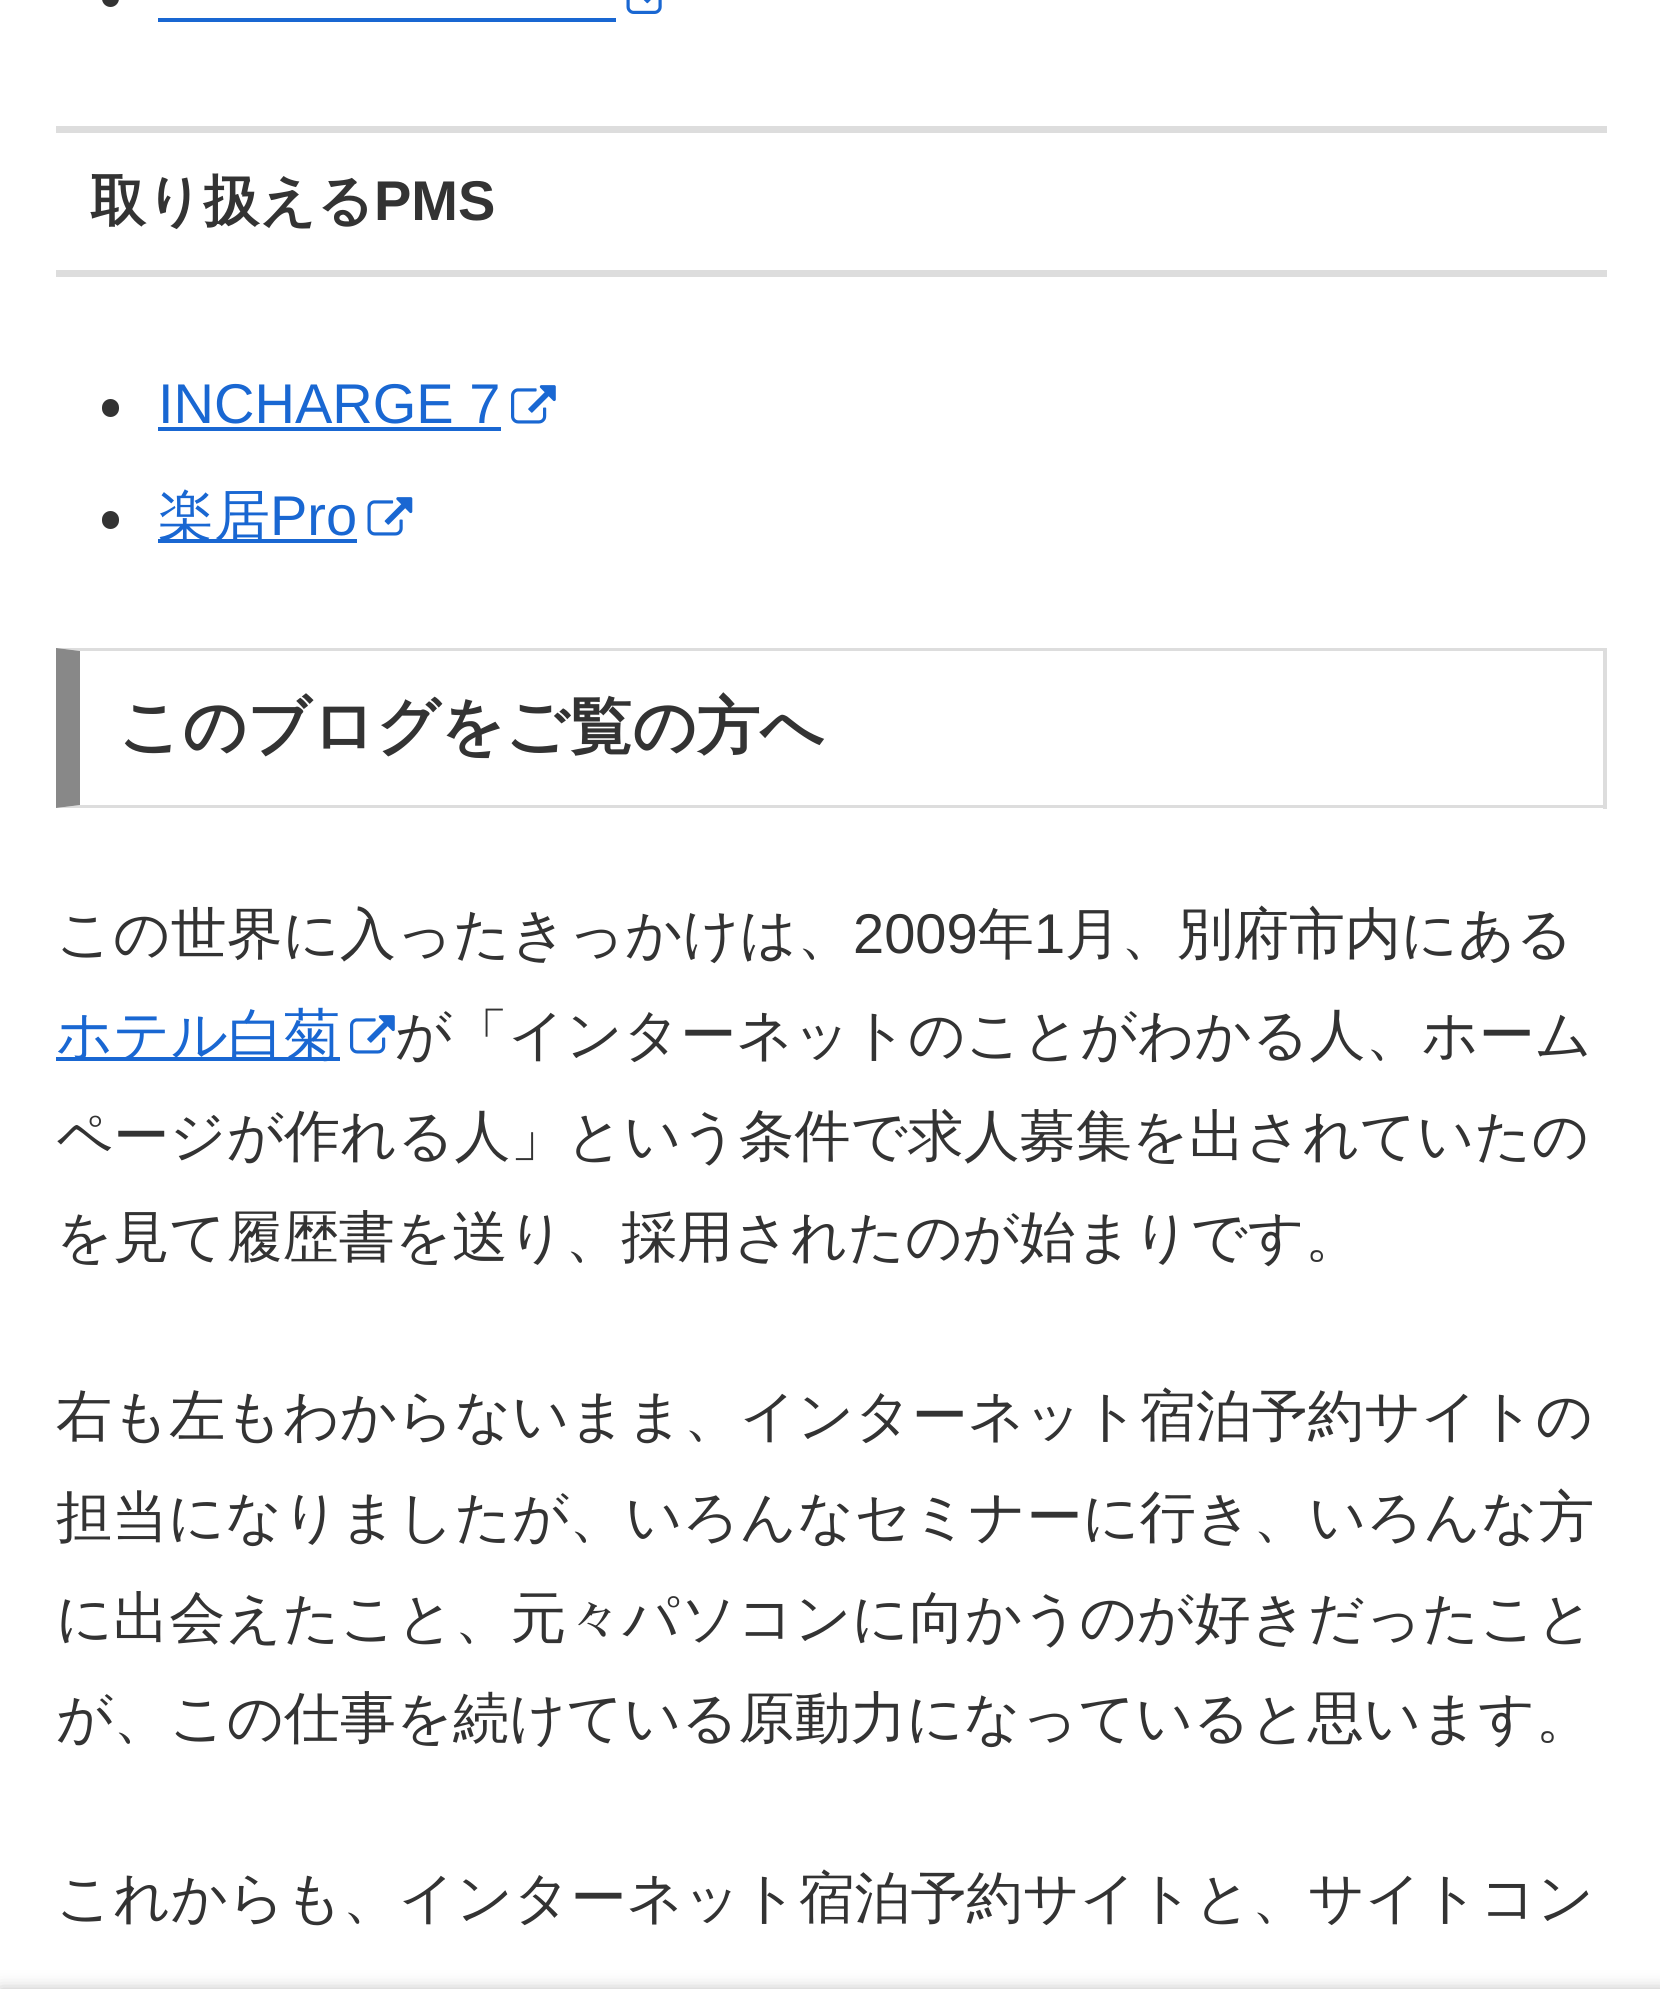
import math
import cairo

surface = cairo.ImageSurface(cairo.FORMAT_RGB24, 1660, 1989)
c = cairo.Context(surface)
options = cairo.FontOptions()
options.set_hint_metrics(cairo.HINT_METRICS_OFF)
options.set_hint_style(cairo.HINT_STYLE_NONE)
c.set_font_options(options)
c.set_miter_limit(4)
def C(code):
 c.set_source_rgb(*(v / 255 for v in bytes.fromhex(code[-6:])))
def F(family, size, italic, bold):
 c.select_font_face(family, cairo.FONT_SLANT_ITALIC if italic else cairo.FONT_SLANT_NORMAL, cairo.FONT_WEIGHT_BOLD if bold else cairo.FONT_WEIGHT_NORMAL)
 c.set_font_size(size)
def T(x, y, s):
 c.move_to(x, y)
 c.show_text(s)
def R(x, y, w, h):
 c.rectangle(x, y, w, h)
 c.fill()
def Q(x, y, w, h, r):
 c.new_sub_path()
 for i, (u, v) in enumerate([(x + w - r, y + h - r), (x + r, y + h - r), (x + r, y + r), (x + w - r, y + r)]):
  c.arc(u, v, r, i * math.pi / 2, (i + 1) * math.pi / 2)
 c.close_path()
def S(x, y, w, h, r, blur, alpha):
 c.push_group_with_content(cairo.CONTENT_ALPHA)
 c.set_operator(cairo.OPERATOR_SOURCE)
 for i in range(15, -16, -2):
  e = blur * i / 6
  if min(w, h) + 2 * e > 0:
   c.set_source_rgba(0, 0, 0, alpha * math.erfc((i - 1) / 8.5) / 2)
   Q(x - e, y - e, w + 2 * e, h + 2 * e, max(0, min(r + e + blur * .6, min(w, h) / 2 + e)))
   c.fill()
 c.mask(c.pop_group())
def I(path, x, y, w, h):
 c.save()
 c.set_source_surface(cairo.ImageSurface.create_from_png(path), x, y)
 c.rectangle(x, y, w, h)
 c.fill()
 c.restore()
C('ffffff')
c.paint()
C('333333')
Q(102,-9,17,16,8.5)
c.fill()
I('1.png',626,0,36,14)
C('1967d2')
R(158,18,458,4)
C('dddddd')
R(56,126,1551,7)
R(56,270,1551,7)
F('WenQuanYi Zen Hei',56,0,1)
C('333333')
T(90,220,'取り扱える')
F('Liberation Sans',56,0,1)
T(374,220,'PMS')
Q(102,399,17,18,8.5)
c.fill()
F('Liberation Sans',56,0,0)
C('1967d2')
T(158,423,'INCHARGE 7')
R(158,427,343,4)
I('2.png',511,385,45,39)
C('333333')
Q(102,511,17,18,8.5)
c.fill()
C('1967d2')
R(158,539,199,4)
F('WenQuanYi Zen Hei Medium',56,0,0)
T(158,535,'楽居')
F('Liberation Sans',56,0,0)
T(270,535,'Pro')
I('3.png',367,497,46,39)
C('dddddd')
c.new_path()
c.move_to(56,648)
c.line_to(1606,648)
c.line_to(1603,651)
c.line_to(80,651)
c.close_path()
c.fill()
R(1603,648,4,161)
c.new_path()
c.move_to(1606,808)
c.line_to(56,808)
c.line_to(80,805)
c.line_to(1603,805)
c.close_path()
c.fill()
C('888888')
c.new_path()
c.move_to(56,808)
c.line_to(56,648)
c.line_to(80,651)
c.line_to(80,805)
c.close_path()
c.fill()
F('WenQuanYi Zen Hei',63,0,1)
C('333333')
T(118,748,'このブログをご覧の方へ')
F('WenQuanYi Zen Hei Medium',56,0,0)
T(56,953,'この世界に入ったきっかけは、')
F('Liberation Sans',56,0,0)
T(853,953,'2009')
F('WenQuanYi Zen Hei Medium',56,0,0)
T(978,953,'年')
F('Liberation Sans',56,0,0)
T(1034,953,'1')
F('WenQuanYi Zen Hei Medium',56,0,0)
T(1065,953,'月、別府市内にある')
C('1967d2')
R(56,1057,284,4)
T(56,1054,'ホテル白菊')
I('2.png',350,1015,45,39)
C('333333')
T(395,1054,'が「インターネットのことがわかる人、ホーム')
T(56,1155,'ページが作れる人」という条件で求人募集を出されていたの')
T(56,1256,'を見て履歴書を送り、採用されたのが始まりです。')
T(56,1435,'右も左もわからないまま、インターネット宿泊予約サイトの')
T(56,1536,'担当になりましたが、いろんなセミナーに行き、いろんな方')
T(56,1637,'に出会えたこと、元々パソコンに向かうのが好きだったこと')
T(56,1737,'が、この仕事を続けている原動力になっていると思います。')
T(56,1917,'これからも、インターネット宿泊予約サイトと、サイトコン')
C('a9a9a9')
S(0,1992,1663,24,0,9,1)
surface.write_to_png('o.png')
